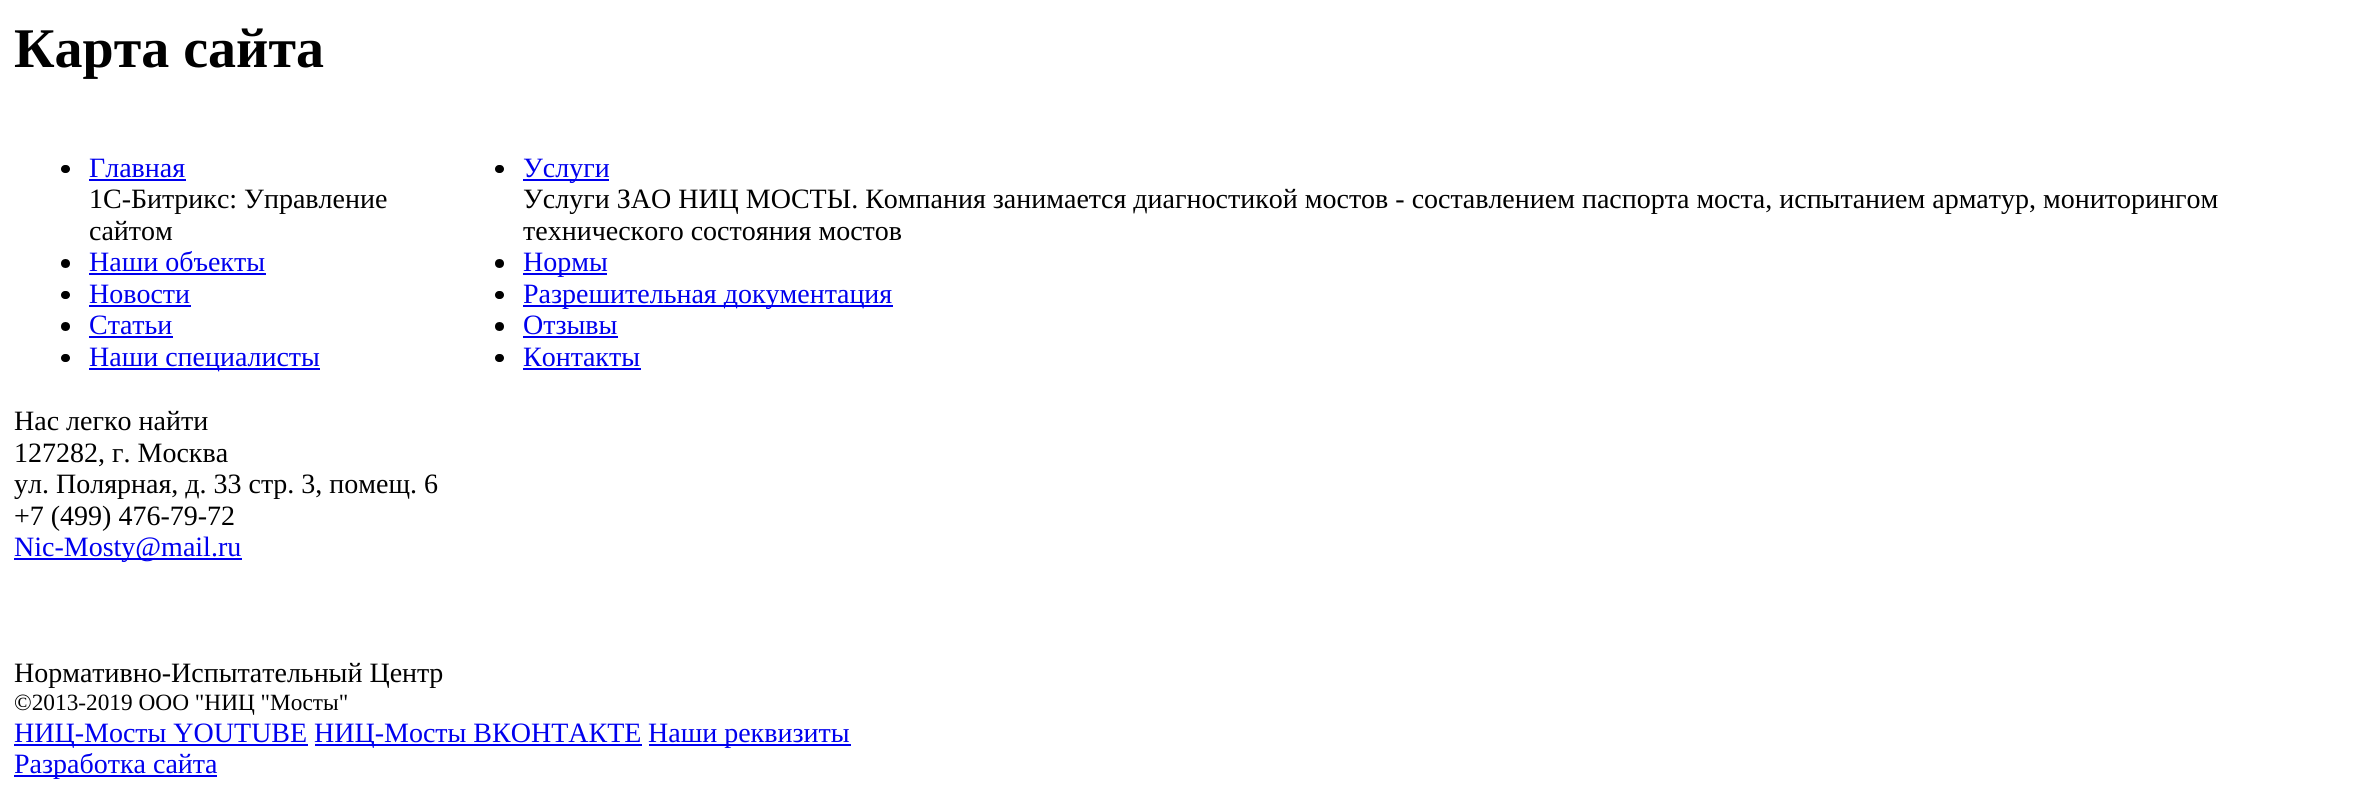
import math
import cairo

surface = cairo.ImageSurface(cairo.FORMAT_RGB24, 2362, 791)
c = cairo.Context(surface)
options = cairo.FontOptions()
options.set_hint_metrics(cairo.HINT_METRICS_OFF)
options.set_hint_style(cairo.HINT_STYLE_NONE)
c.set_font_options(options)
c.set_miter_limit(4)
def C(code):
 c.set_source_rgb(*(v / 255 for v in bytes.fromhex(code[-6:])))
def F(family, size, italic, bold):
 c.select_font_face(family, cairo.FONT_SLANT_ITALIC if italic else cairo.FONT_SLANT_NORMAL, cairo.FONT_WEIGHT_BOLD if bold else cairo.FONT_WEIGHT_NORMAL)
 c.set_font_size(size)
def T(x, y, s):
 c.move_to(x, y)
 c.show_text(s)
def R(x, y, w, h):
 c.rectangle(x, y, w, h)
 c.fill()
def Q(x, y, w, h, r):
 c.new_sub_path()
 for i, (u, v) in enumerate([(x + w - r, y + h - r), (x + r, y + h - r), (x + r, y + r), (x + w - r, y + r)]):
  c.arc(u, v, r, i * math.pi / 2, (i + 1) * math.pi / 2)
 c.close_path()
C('ffffff')
c.paint()
F('Liberation Serif',56,0,1)
C('000000')
T(14,67,'Карта сайта')
Q(61,165,9,8,4)
c.fill()
F('Liberation Serif',28,0,0)
C('0000ee')
T(89,177,'Главная')
R(89,179,97,2)
C('000000')
T(89,208,'1С-Битрикс: Управление')
T(89,240,'сайтом')
c.new_path()
c.arc(65.5,263.5,4.5,0,2 * math.pi)
c.fill()
C('0000ee')
T(89,271,'Наши объекты')
R(89,273,177,2)
C('000000')
Q(61,291,9,8,4)
c.fill()
C('0000ee')
T(89,303,'Новости')
R(89,305,102,2)
C('000000')
c.new_path()
c.arc(65.5,326.5,4.5,0,2 * math.pi)
c.fill()
C('0000ee')
T(89,334,'Статьи')
R(89,336,84,2)
C('000000')
Q(61,354,9,8,4)
c.fill()
C('0000ee')
R(89,368,231,2)
T(89,366,'Наши специалисты')
C('000000')
Q(495,165,9,8,4)
c.fill()
C('0000ee')
R(523,179,86,2)
T(523,177,'Услуги')
C('000000')
T(523,208,'Услуги ЗАО НИЦ МОСТЫ. Компания занимается диагностикой мостов - составлением паспорта моста, испытанием арматур, мониторингом')
T(523,240,'технического состояния мостов')
c.new_path()
c.arc(499.5,263.5,4.5,0,2 * math.pi)
c.fill()
C('0000ee')
R(523,273,84,2)
T(523,271,'Нормы')
C('000000')
Q(495,291,9,8,4)
c.fill()
C('0000ee')
R(523,305,370,2)
T(523,303,'Разрешительная документация')
C('000000')
c.new_path()
c.arc(499.5,326.5,4.5,0,2 * math.pi)
c.fill()
C('0000ee')
T(523,334,'Отзывы')
R(523,336,95,2)
C('000000')
Q(495,354,9,8,4)
c.fill()
C('0000ee')
T(523,366,'Контакты')
R(523,368,118,2)
C('000000')
T(14,430,'Нас легко найти')
T(14,462,'127282, г. Москва')
T(14,493,'ул. Полярная, д. 33 стр. 3, помещ. 6')
T(14,525,'+7 (499) 476-79-72')
C('0000ee')
R(14,558,228,2)
T(14,556,'Nic-Mosty@mail.ru')
C('000000')
T(14,682,'Нормативно-Испытательный Центр')
F('Liberation Serif',23.3,0,0)
T(14,710,'©2013-2019 ООО "НИЦ "Мосты"')
C('0000ee')
R(14,744,294,2)
F('Liberation Serif',28,0,0)
T(14,742,'НИЦ-Мосты YOUTUBE')
R(315,744,327,2)
T(314,742,'НИЦ-Мосты ВКОНТАКТЕ')
R(649,744,202,2)
T(648,742,'Наши реквизиты')
R(14,775,203,2)
T(14,773,'Разработка сайта')
surface.write_to_png('o.png')
